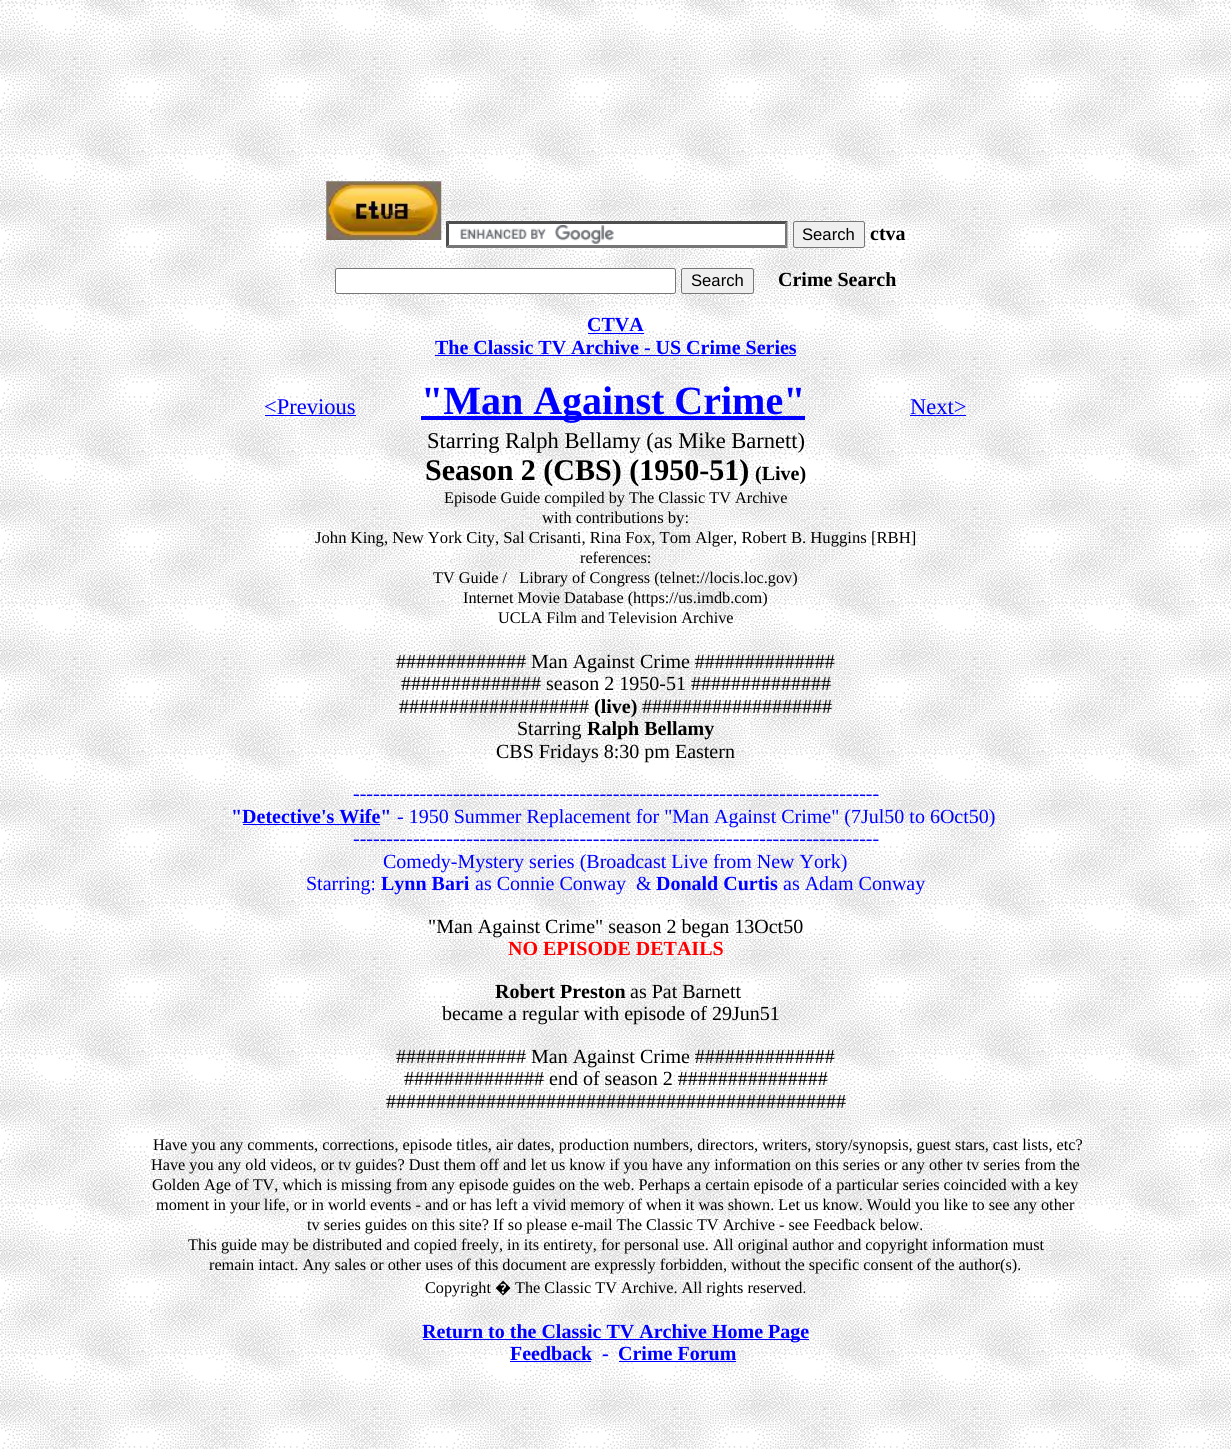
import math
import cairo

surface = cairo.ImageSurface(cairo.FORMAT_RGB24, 1231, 1449)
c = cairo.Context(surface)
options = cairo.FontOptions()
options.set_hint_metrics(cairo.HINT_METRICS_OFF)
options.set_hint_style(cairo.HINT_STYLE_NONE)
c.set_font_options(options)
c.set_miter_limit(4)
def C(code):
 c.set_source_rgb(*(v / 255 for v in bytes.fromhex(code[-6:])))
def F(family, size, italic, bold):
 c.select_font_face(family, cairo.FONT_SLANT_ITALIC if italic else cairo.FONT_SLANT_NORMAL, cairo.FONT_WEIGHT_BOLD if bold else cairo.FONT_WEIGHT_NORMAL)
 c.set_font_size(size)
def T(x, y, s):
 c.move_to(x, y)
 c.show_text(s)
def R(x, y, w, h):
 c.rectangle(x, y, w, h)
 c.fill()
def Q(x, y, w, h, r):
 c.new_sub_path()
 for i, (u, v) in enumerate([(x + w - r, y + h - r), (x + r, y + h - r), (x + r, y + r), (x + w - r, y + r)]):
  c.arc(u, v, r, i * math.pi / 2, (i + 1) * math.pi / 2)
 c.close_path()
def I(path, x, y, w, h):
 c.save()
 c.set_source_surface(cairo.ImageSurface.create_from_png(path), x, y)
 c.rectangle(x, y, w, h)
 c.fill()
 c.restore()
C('ffffff')
c.paint()
I('1.png',0,0,1231,1449)
I('2.png',326,181,116,59)
C('ffffff')
R(446,221,342,27)
I('3.png',460,225,154,19)
C('4f4f4f')
c.new_path()
c.move_to(446,221)
c.line_to(788,221)
c.line_to(785,224)
c.line_to(449,224)
c.close_path()
c.fill()
C('767676')
c.new_path()
c.move_to(787.5,221)
c.line_to(787.5,247.5)
c.line_to(785,245)
c.line_to(785,224)
c.close_path()
c.fill()
c.new_path()
c.move_to(788,248)
c.line_to(446,248)
c.line_to(449,245)
c.line_to(785,245)
c.close_path()
c.fill()
C('4f4f4f')
c.new_path()
c.move_to(446,247.5)
c.line_to(446,221)
c.line_to(449,224)
c.line_to(449,245)
c.close_path()
c.fill()
C('efefef')
Q(793.5,221.5,71,26,2)
c.fill_preserve()
C('767676')
c.set_line_width(1)
c.stroke()
F('Liberation Sans',16.65,0,0)
C('000000')
T(802,240,'Search')
F('Liberation Serif',20,0,1)
T(870,240,'ctva')
C('ffffff')
Q(335.5,268.5,340,25,2)
c.fill_preserve()
C('767676')
c.stroke()
C('efefef')
Q(681.5,268.5,72,25,2)
c.fill_preserve()
C('767676')
c.stroke()
F('Liberation Sans',16.65,0,0)
C('000000')
T(691,286,'Search')
F('Liberation Serif',20,0,1)
T(778,286,'Crime Search')
C('0000ff')
T(587,331,'CTVA')
R(588,333,56,1)
T(435,354,'The Classic TV Archive - US Crime Series')
R(435,355,361,1)
F('Liberation Serif',22.5,0,0)
T(264,414,'<Previous')
R(265,415,91,1)
R(421,416,384,4)
F('Liberation Serif',40,0,1)
T(421,414,'"Man Against Crime"')
F('Liberation Serif',22.5,0,0)
T(910,414,'Next>')
R(910,415,56,1)
C('000000')
T(427,448,'Starring Ralph Bellamy (as Mike Barnett)')
F('Liberation Serif',30,0,1)
T(425,480,'Season 2 (CBS) (1950-51)')
F('Liberation Serif',20,0,1)
T(755,480,'(Live)')
F('Liberation Serif',16.25,0,0)
T(444,503,'Episode Guide compiled by The Classic TV Archive')
F('Liberation Serif',16.65,0,0)
T(542,523,'with contributions by:')
T(315,543,'John King, New York City, Sal Crisanti, Rina Fox, Tom Alger, Robert B. Huggins [RBH]')
F('Liberation Serif',16.25,0,0)
T(580,563,'references:')
T(433,583,'TV Guide /   Library of Congress (telnet://locis.loc.gov)')
T(463,603,'Internet Movie Database (https://us.imdb.com)')
T(498,623,'UCLA Film and Television Archive')
F('Liberation Serif',20,0,0)
T(396,668,'############# Man Against Crime ##############')
T(401,690,'############## season 2 1950-51 ##############')
T(399,713,'###################')
F('Liberation Serif',20,0,1)
T(594,713,'(live)')
F('Liberation Serif',20,0,0)
T(642,713,'###################')
T(517,735,'Starring')
F('Liberation Serif',20,0,1)
T(587,735,'Ralph Bellamy')
F('Liberation Serif',20,0,0)
T(496,758,'CBS Fridays 8:30 pm Eastern')
C('0000ff')
T(353,800,'-------------------------------------------------------------------------------')
F('Liberation Serif',20,0,1)
T(231,823,'"Detective\'s Wife"')
R(243,824,137,1)
F('Liberation Serif',20,0,0)
T(397,823,'- 1950 Summer Replacement for "Man Against Crime" (7Jul50 to 6Oct50)')
T(353,845,'-------------------------------------------------------------------------------')
T(383,868,'Comedy-Mystery series (Broadcast Live from New York)')
T(306,890,'Starring:')
F('Liberation Serif',20,0,1)
T(381,890,'Lynn Bari')
F('Liberation Serif',20,0,0)
T(475,890,'as Connie Conway  &')
F('Liberation Serif',20,0,1)
T(656,890,'Donald Curtis')
F('Liberation Serif',20,0,0)
T(783,890,'as Adam Conway')
C('000000')
T(428,933,'"Man Against Crime" season 2 began 13Oct50')
F('Liberation Serif',20,0,1)
C('ff0000')
T(508,955,'NO EPISODE DETAILS')
C('000000')
T(495,998,'Robert Preston')
F('Liberation Serif',20,0,0)
T(630,998,'as Pat Barnett')
T(442,1020,'became a regular with episode of 29Jun51')
T(396,1063,'############# Man Against Crime ##############')
T(404,1085,'############## end of season 2 ###############')
T(386,1108,'##############################################')
F('Liberation Serif',16.25,0,0)
T(153,1150,'Have you any comments, corrections, episode titles, air dates, production numbers, directors, writers, story/synopsis, guest stars, cast lists, etc?')
T(151,1170,'Have you any old videos, or tv guides? Dust them off and let us know if you have any information on this series or any other tv series from the')
T(152,1190,'Golden Age of TV, which is missing from any episode guides on the web. Perhaps a certain episode of a particular series coincided with a key')
T(156,1210,'moment in your life, or in world events - and or has left a vivid memory of when it was shown. Let us know. Would you like to see any other')
T(307,1230,'tv series guides on this site? If so please e-mail The Classic TV Archive - see Feedback below.')
T(188,1250,'This guide may be distributed and copied freely, in its entirety, for personal use. All original author and copyright information must')
T(209,1270,'remain intact. Any sales or other uses of this document are expressly forbidden, without the specific consent of the author(s).')
T(425,1293,'Copyright')
F('Noto Sans',16.25,0,0)
T(495,1293,'�')
F('Liberation Serif',16.25,0,0)
T(515,1293,'The Classic TV Archive. All rights reserved.')
C('0000ff')
R(423,1339,386,1)
F('Liberation Serif',20,0,1)
T(422,1338,'Return to the Classic TV Archive Home Page')
T(510,1360,'Feedback')
R(510,1361,81,1)
T(602,1360,'-')
T(618,1360,'Crime Forum')
R(619,1361,117,1)
surface.write_to_png('o.png')
